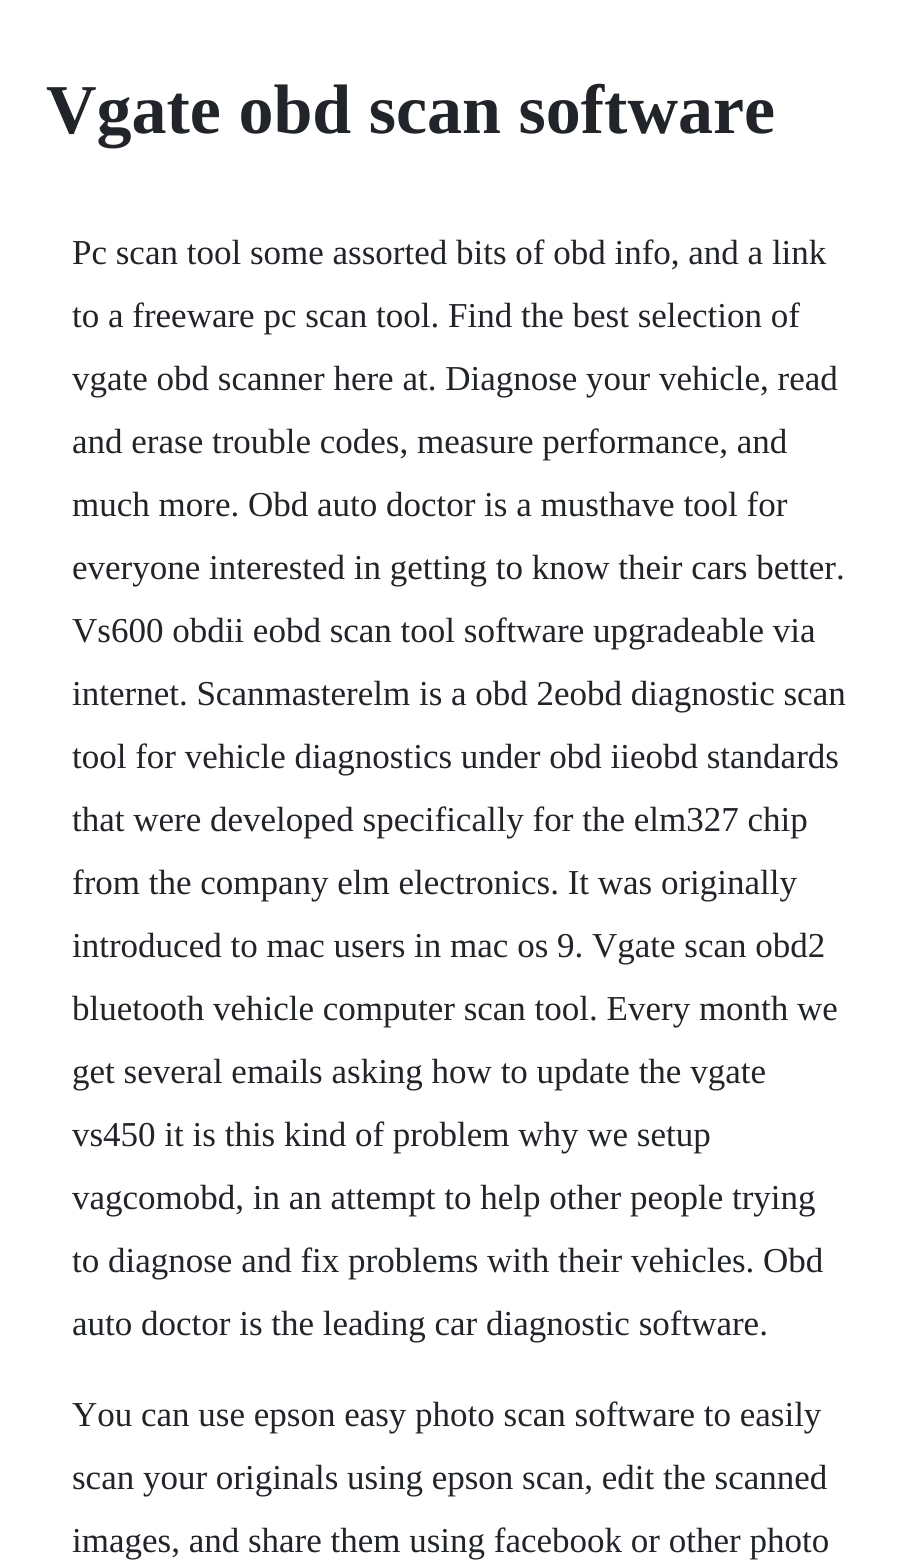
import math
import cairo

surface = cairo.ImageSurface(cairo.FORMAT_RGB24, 920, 1568)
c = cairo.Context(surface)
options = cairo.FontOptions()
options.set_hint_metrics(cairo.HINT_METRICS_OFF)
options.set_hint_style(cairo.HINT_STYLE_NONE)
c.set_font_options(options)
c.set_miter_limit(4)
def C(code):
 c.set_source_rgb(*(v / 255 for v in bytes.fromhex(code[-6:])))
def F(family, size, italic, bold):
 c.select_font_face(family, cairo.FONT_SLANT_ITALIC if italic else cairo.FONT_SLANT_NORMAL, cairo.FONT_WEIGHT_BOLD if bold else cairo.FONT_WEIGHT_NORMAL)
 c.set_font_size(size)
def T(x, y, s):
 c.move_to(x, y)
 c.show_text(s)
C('ffffff')
c.paint()
F('Liberation Serif',70,0,1)
C('212529')
T(46,133,'Vgate obd scan software')
F('Liberation Serif',35,0,0)
T(72,264,'Pc scan tool some assorted bits of obd info, and a link')
T(72,327,'to a freeware pc scan tool. Find the best selection of')
T(72,390,'vgate obd scanner here at. Diagnose your vehicle, read')
T(72,453,'and erase trouble codes, measure performance, and')
T(72,516,'much more. Obd auto doctor is a musthave tool for')
T(72,579,'everyone interested in getting to know their cars better.')
T(72,642,'Vs600 obdii eobd scan tool software upgradeable via')
T(72,705,'internet. Scanmasterelm is a obd 2eobd diagnostic scan')
T(72,768,'tool for vehicle diagnostics under obd iieobd standards')
T(72,831,'that were developed specifically for the elm327 chip')
T(72,894,'from the company elm electronics. It was originally')
T(72,957,'introduced to mac users in mac os 9. Vgate scan obd2')
T(72,1020,'bluetooth vehicle computer scan tool. Every month we')
T(72,1083,'get several emails asking how to update the vgate')
T(72,1146,'vs450 it is this kind of problem why we setup')
T(72,1209,'vagcomobd, in an attempt to help other people trying')
T(72,1272,'to diagnose and fix problems with their vehicles. Obd')
T(72,1335,'auto doctor is the leading car diagnostic software.')
T(72,1426,'You can use epson easy photo scan software to easily')
T(72,1489,'scan your originals using epson scan, edit the scanned')
T(72,1552,'images, and share them using facebook or other photo')
surface.write_to_png('o.png')
